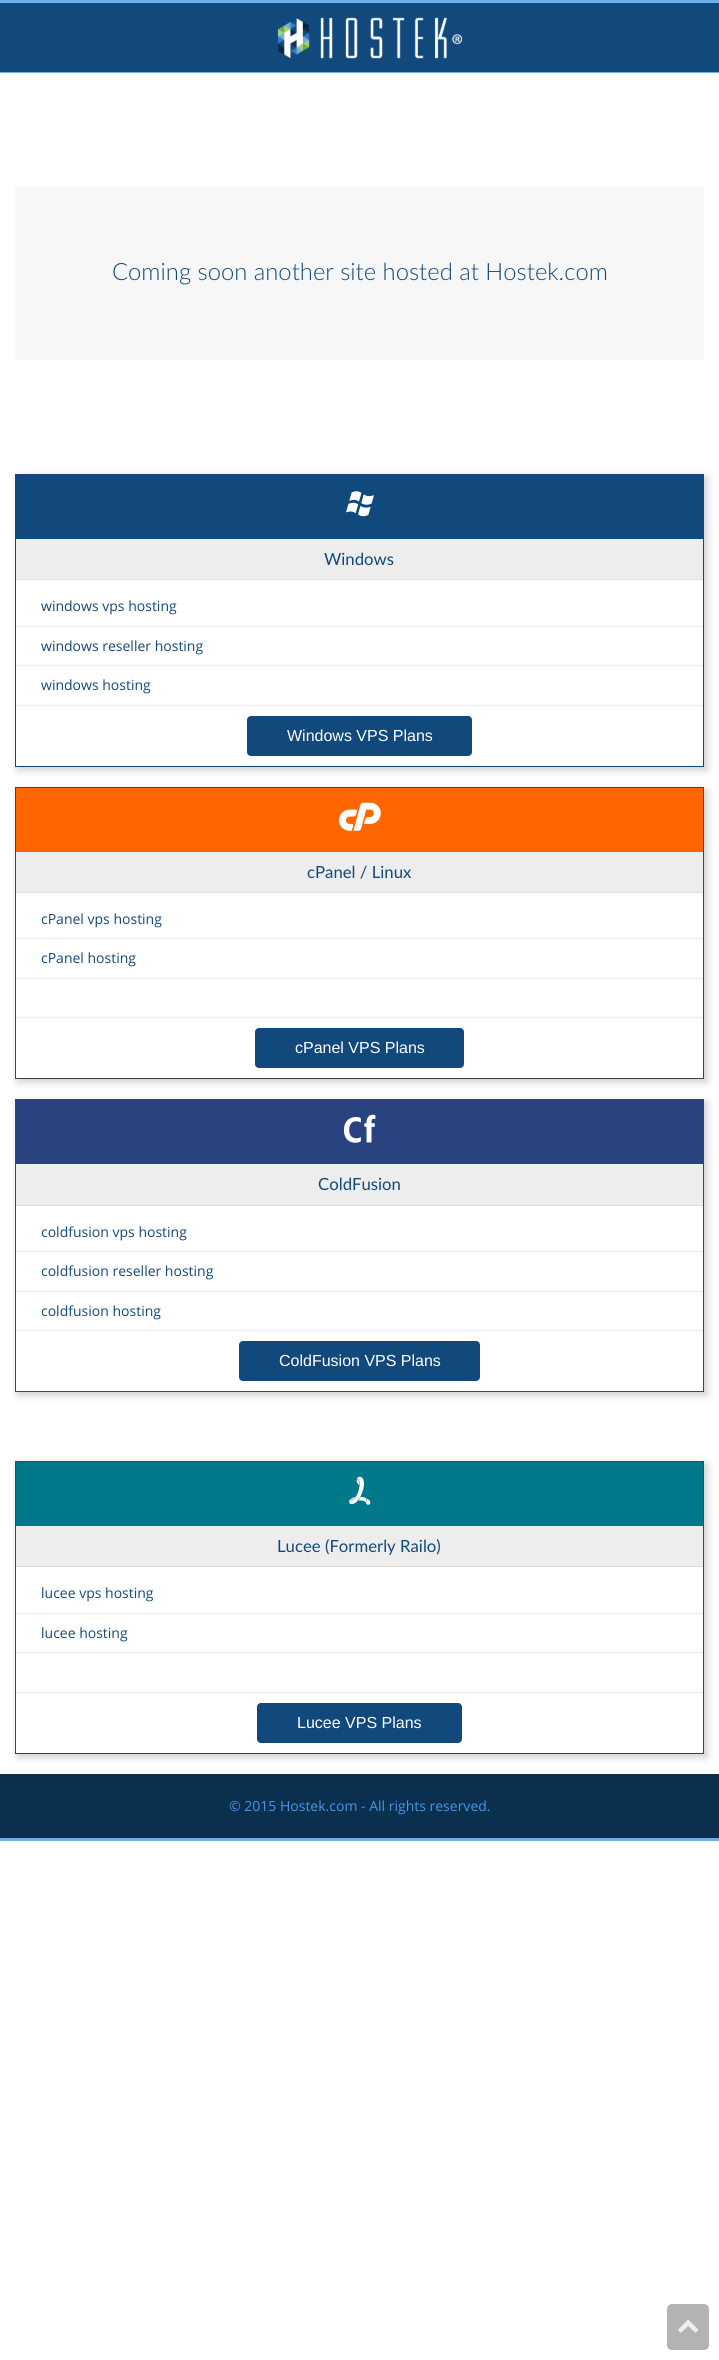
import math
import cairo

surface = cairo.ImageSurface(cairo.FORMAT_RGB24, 719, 2360)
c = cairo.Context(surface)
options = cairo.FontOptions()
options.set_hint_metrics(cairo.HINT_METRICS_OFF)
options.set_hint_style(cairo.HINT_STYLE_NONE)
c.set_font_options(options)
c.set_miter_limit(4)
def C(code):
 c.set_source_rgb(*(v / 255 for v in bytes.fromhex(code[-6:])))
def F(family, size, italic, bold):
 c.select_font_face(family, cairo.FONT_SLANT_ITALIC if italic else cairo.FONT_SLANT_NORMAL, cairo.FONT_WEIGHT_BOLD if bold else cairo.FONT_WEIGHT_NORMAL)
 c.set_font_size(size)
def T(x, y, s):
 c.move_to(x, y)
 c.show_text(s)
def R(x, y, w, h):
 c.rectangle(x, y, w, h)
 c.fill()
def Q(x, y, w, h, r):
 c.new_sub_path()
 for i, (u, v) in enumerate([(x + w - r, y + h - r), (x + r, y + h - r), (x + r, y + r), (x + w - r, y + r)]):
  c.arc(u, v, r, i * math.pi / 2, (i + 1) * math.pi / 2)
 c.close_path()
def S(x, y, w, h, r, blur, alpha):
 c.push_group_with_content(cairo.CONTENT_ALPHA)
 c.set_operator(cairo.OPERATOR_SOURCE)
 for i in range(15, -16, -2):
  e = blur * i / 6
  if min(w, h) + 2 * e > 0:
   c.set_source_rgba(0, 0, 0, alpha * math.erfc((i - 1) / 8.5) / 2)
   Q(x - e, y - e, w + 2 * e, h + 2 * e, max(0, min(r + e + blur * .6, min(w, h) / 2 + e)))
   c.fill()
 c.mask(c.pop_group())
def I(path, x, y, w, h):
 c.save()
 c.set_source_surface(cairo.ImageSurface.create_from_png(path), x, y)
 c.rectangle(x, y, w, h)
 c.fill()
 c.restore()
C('ffffff')
c.paint()
C('12497c')
R(0,3,719,69)
C('70afea')
R(0,0,719,3)
R(0,72,719,1)
I('1.png',277,17,185,42)
C('f7f7f7')
R(15,187,689,173)
F('Lato Light',23.8,0,0)
C('12497c')
T(112,280,'Coming soon another site hosted at Hostek.com')
c.save()
c.set_fill_rule(cairo.FILL_RULE_EVEN_ODD)
c.new_path()
c.move_to(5,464)
c.line_to(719,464)
c.line_to(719,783)
c.line_to(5,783)
c.close_path()
c.move_to(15,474)
c.line_to(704,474)
c.line_to(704,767)
c.line_to(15,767)
c.close_path()
c.clip()
C('cccccc')
S(18,477,689,293,0,4,1)
c.restore()
c.rectangle(15.5,474.5,688,292)
c.set_line_width(1)
c.stroke()
R(16,475,687,64)
I('2.png',346,491,28,26)
C('ededed')
R(16,539,687,40)
C('dddddd')
R(16,579,687,1)
F('Lato',16.75,0,0)
C('12497c')
T(324,565,'Windows')
c.new_path()
c.move_to(16,626.5)
c.line_to(703,626.5)
C('dddddd')
c.set_dash([1,1])
c.stroke()
F('Open Sans',14,0,0)
C('12497c')
T(41,611,'windows vps hosting')
c.new_path()
c.move_to(16,665.5)
c.line_to(703,665.5)
C('dddddd')
c.stroke()
C('12497c')
T(41,651,'windows reseller hosting')
c.new_path()
c.move_to(16,705.5)
c.line_to(703,705.5)
C('dddddd')
c.stroke()
C('12497c')
T(41,690,'windows hosting')
Q(247,716,225,40,4)
c.fill()
F('Liberation Sans',16,0,0)
C('ffffff')
T(287,741,'Windows VPS Plans')
c.save()
c.set_fill_rule(cairo.FILL_RULE_EVEN_ODD)
c.new_path()
c.move_to(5,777)
c.line_to(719,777)
c.line_to(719,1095)
c.line_to(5,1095)
c.close_path()
c.move_to(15,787)
c.line_to(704,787)
c.line_to(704,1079)
c.line_to(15,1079)
c.close_path()
c.clip()
C('cccccc')
S(18,790,689,292,0,4,1)
c.restore()
c.rectangle(15.5,787.5,688,291)
C('444444')
c.set_dash([])
c.stroke()
C('ff6600')
R(16,788,687,64)
I('3.png',339,802,42,29)
C('ededed')
R(16,852,687,40)
C('dddddd')
R(16,892,687,1)
F('Lato',16.75,0,0)
C('12497c')
T(307,878,'cPanel / Linux')
c.new_path()
c.move_to(16,938.5)
c.line_to(703,938.5)
C('dddddd')
c.set_dash([1,1])
c.stroke()
F('Open Sans',14,0,0)
C('12497c')
T(41,924,'cPanel vps hosting')
c.new_path()
c.move_to(16,978.5)
c.line_to(703,978.5)
C('dddddd')
c.stroke()
C('12497c')
T(41,963,'cPanel hosting')
c.new_path()
c.move_to(16,1017.5)
c.line_to(703,1017.5)
C('dddddd')
c.stroke()
C('12497c')
Q(255,1028,209,40,4)
c.fill()
F('Liberation Sans',16,0,0)
C('ffffff')
T(295,1053,'cPanel VPS Plans')
c.save()
c.set_fill_rule(cairo.FILL_RULE_EVEN_ODD)
c.new_path()
c.move_to(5,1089)
c.line_to(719,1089)
c.line_to(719,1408)
c.line_to(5,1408)
c.close_path()
c.move_to(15,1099)
c.line_to(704,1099)
c.line_to(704,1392)
c.line_to(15,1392)
c.close_path()
c.clip()
C('cccccc')
S(18,1102,689,293,0,4,1)
c.restore()
c.rectangle(15.5,1099.5,688,292)
C('444444')
c.set_dash([])
c.stroke()
C('28437f')
R(16,1100,687,64)
I('4.png',344,1114,32,29)
C('ededed')
R(16,1164,687,41)
C('dddddd')
R(16,1205,687,1)
F('Lato',16.75,0,0)
C('12497c')
T(318,1190,'ColdFusion')
c.new_path()
c.move_to(16,1251.5)
c.line_to(703,1251.5)
C('dddddd')
c.set_dash([1,1])
c.stroke()
F('Open Sans',14,0,0)
C('12497c')
T(41,1237,'coldfusion vps hosting')
c.new_path()
c.move_to(16,1291.5)
c.line_to(703,1291.5)
C('dddddd')
c.stroke()
C('12497c')
T(41,1276,'coldfusion reseller hosting')
c.new_path()
c.move_to(16,1330.5)
c.line_to(703,1330.5)
C('dddddd')
c.stroke()
C('12497c')
T(41,1316,'coldfusion hosting')
Q(239,1341,241,40,4)
c.fill()
F('Liberation Sans',16,0,0)
C('ffffff')
T(279,1366,'ColdFusion VPS Plans')
c.save()
c.set_fill_rule(cairo.FILL_RULE_EVEN_ODD)
c.new_path()
c.move_to(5,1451)
c.line_to(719,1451)
c.line_to(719,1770)
c.line_to(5,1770)
c.close_path()
c.move_to(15,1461)
c.line_to(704,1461)
c.line_to(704,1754)
c.line_to(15,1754)
c.close_path()
c.clip()
C('cccccc')
S(18,1464,689,293,0,4,1)
c.restore()
c.rectangle(15.5,1461.5,688,292)
C('444444')
c.set_dash([])
c.stroke()
C('01798a')
R(16,1462,687,64)
I('5.png',349,1476,22,29)
C('ededed')
R(16,1526,687,40)
C('dddddd')
R(16,1566,687,1)
F('Lato',16.75,0,0)
C('12497c')
T(277,1552,'Lucee (Formerly Railo)')
c.new_path()
c.move_to(16,1613.5)
c.line_to(703,1613.5)
C('dddddd')
c.set_dash([1,1])
c.stroke()
F('Open Sans',14,0,0)
C('12497c')
T(41,1598,'lucee vps hosting')
c.new_path()
c.move_to(16,1652.5)
c.line_to(703,1652.5)
C('dddddd')
c.stroke()
C('12497c')
T(41,1638,'lucee hosting')
c.new_path()
c.move_to(16,1692.5)
c.line_to(703,1692.5)
C('dddddd')
c.stroke()
C('12497c')
Q(257,1703,205,40,4)
c.fill()
F('Liberation Sans',16,0,0)
C('ffffff')
T(297,1728,'Lucee VPS Plans')
C('0b2f4f')
R(0,1774,719,64)
C('70afea')
R(0,1838,719,3)
F('Open Sans',14,0,0)
C('4497e4')
T(229,1811,'© 2015 Hostek.com - All rights reserved.')
C('b3b3b3')
Q(667,2304,42,46,5)
c.fill()
I('6.png',678,2319,21,14)
surface.write_to_png('o.png')
